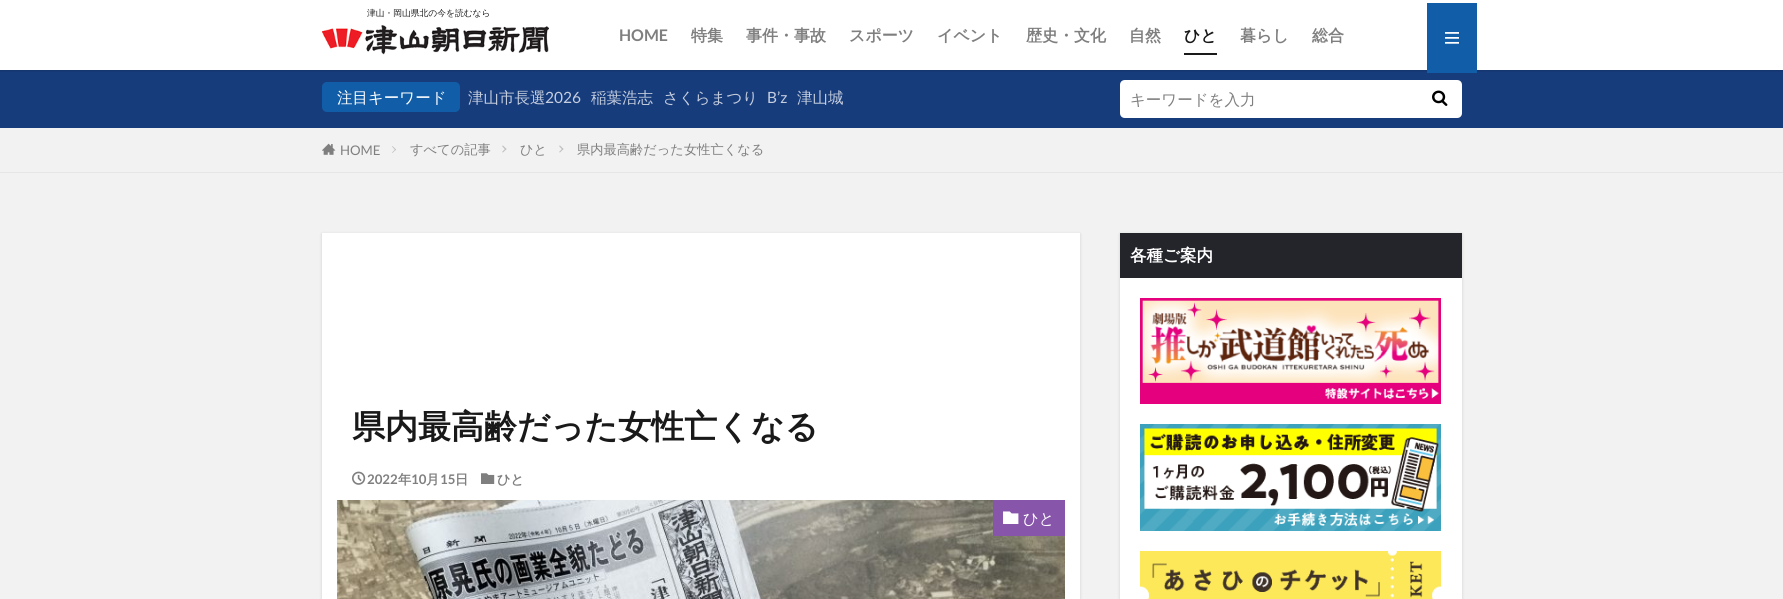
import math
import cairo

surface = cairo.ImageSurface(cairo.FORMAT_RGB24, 1783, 599)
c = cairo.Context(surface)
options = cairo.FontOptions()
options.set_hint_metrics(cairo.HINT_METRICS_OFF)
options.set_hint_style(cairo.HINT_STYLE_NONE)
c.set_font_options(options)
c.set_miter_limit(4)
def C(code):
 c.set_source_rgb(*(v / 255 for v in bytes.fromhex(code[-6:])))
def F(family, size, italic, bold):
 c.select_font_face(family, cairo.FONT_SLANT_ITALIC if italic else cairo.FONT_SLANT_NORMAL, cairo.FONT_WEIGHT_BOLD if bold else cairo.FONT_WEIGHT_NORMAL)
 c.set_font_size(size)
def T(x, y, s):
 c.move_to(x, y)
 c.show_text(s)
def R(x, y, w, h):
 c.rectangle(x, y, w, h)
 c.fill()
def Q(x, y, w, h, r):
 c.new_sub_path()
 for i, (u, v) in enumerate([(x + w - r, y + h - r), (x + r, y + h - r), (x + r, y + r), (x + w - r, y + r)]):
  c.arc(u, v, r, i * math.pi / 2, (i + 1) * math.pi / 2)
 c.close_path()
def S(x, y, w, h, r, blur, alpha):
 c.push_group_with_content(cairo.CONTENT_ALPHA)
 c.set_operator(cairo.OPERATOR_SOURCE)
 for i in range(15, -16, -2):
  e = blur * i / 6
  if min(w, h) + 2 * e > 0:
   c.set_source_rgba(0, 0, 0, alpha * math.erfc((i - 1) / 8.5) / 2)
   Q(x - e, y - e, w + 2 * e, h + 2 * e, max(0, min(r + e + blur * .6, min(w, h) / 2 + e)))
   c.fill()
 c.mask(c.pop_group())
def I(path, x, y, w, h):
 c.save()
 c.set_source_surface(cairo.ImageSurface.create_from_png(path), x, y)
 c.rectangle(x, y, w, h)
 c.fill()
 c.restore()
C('f2f2f2')
c.paint()
C('173c7c')
R(0,70,1783,58)
C('000000')
S(0,1,1783,70,0,1,.15)
C('ffffff')
R(0,0,1783,70)
F('WenQuanYi Zen Hei Medium',8.75,0,0)
C('191919')
T(367,16,'津山・岡山県北の今を読むなら')
C('125da8')
R(1427,3,50,70)
I('1.png',1445,32,14,12)
I('2.png',322,25,227,30)
F('Lato',16,0,1)
C('7f7f7f')
T(619,41,'HOME')
F('WenQuanYi Zen Hei',16,0,1)
T(691,41,'特集')
T(746,41,'事件・事故')
T(849,41,'スポーツ')
T(937,41,'イベント')
T(1026,41,'歴史・文化')
T(1129,41,'自然')
C('1a1a1a')
R(1184,53,33,2)
C('191919')
T(1184,41,'ひと')
C('7f7f7f')
T(1240,41,'暮らし')
T(1312,41,'総合')
C('125da8')
Q(322,82,138,30,5)
c.fill()
F('WenQuanYi Zen Hei Medium',15.5,0,0)
C('ffffff')
T(337,103,'注目キーワード')
C('c5cede')
T(468,103,'津山市長選')
F('Lato',15.5,0,0)
T(545,103,'2026')
F('WenQuanYi Zen Hei Medium',15.5,0,0)
T(591,103,'稲葉浩志')
T(663,103,'さくらまつり')
F('Lato',15.5,0,0)
T(767,103,'B’z')
F('WenQuanYi Zen Hei Medium',15.5,0,0)
T(797,103,'津山城')
C('ffffff')
c.new_path()
c.move_to(1125,80)
c.line_to(1418,80)
c.line_to(1418,118)
c.line_to(1125,118)
c.curve_to(1122,118,1120,116,1120,113)
c.line_to(1120,85)
c.curve_to(1120,82,1122,80,1125,80)
c.close_path()
c.fill()
C('7f7f7f')
T(1130,105,'キーワードを入力')
C('ffffff')
c.new_path()
c.move_to(1418,80)
c.line_to(1457,80)
c.curve_to(1460,80,1462,82,1462,85)
c.line_to(1462,113)
c.curve_to(1462,116,1460,118,1457,118)
c.line_to(1418,118)
c.close_path()
c.fill()
I('3.png',1432,90,16,16)
C('e6e6e6')
R(0,172,1783,1)
I('4.png',322,143,14,12)
F('Lato',13.25,0,0)
C('7f7f7f')
T(340,155,'HOME')
C('bfbfbf')
c.new_path()
c.move_to(392.5,146)
c.line_to(396,149.5)
c.line_to(395.5,150.5)
c.line_to(392,146.5)
c.close_path()
c.fill()
c.new_path()
c.move_to(395.5,149)
c.line_to(396,149.5)
c.line_to(392.5,153)
c.line_to(392,152.5)
c.close_path()
c.fill()
F('WenQuanYi Zen Hei Medium',13.25,0,0)
C('7f7f7f')
T(410,154,'すべての記事')
C('bfbfbf')
c.new_path()
c.move_to(503,145.5)
c.line_to(506.5,149)
c.line_to(505.5,150)
c.line_to(502,146)
c.close_path()
c.fill()
c.new_path()
c.move_to(505.5,148.5)
c.line_to(506.5,149)
c.line_to(503,152.5)
c.line_to(502,152)
c.close_path()
c.fill()
C('7f7f7f')
T(520,154,'ひと')
C('bfbfbf')
c.new_path()
c.move_to(560,145.5)
c.line_to(563.5,149)
c.line_to(562.5,150)
c.line_to(559,146)
c.close_path()
c.fill()
c.new_path()
c.move_to(562.5,148.5)
c.line_to(563.5,149)
c.line_to(560,152.5)
c.line_to(559,152)
c.close_path()
c.fill()
C('7f7f7f')
T(577,154,'県内最高齢だった女性亡くなる')
C('000000')
S(1120,234,342,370,0,1.5,.15)
C('ffffff')
R(1120,278,342,321)
C('24252b')
R(1120,233,342,45)
F('WenQuanYi Zen Hei',16.5,0,1)
C('ffffff')
T(1130,261,'各種ご案内')
I('5.png',1140,298,301,106)
I('6.png',1140,424,301,107)
I('7.png',1140,551,301,48)
C('000000')
S(322,234,758,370,0,1.5,.15)
C('ffffff')
R(322,233,758,366)
F('WenQuanYi Zen Hei',33,0,1)
C('191919')
T(352,438,'県内最高齢だった女性亡くなる')
I('8.png',352,471,14,14)
F('Lato',13.25,0,1)
C('7f7f7f')
T(367,484,'2022')
F('WenQuanYi Zen Hei',13.25,0,1)
T(398,484,'年')
F('Lato',13.25,0,1)
T(411,484,'10')
F('WenQuanYi Zen Hei',13.25,0,1)
T(426,484,'月')
F('Lato',13.25,0,1)
T(440,484,'15')
F('WenQuanYi Zen Hei',13.25,0,1)
T(455,484,'日')
I('9.png',481,473,14,11)
T(497,484,'ひと')
I('10.png',337,500,728,99)
C('8755aa')
R(993,500,72,36)
I('11.png',1003,511,16,13)
F('WenQuanYi Zen Hei Medium',15.5,0,0)
C('ffffff')
T(1023,524,'ひと')
surface.write_to_png('o.png')
